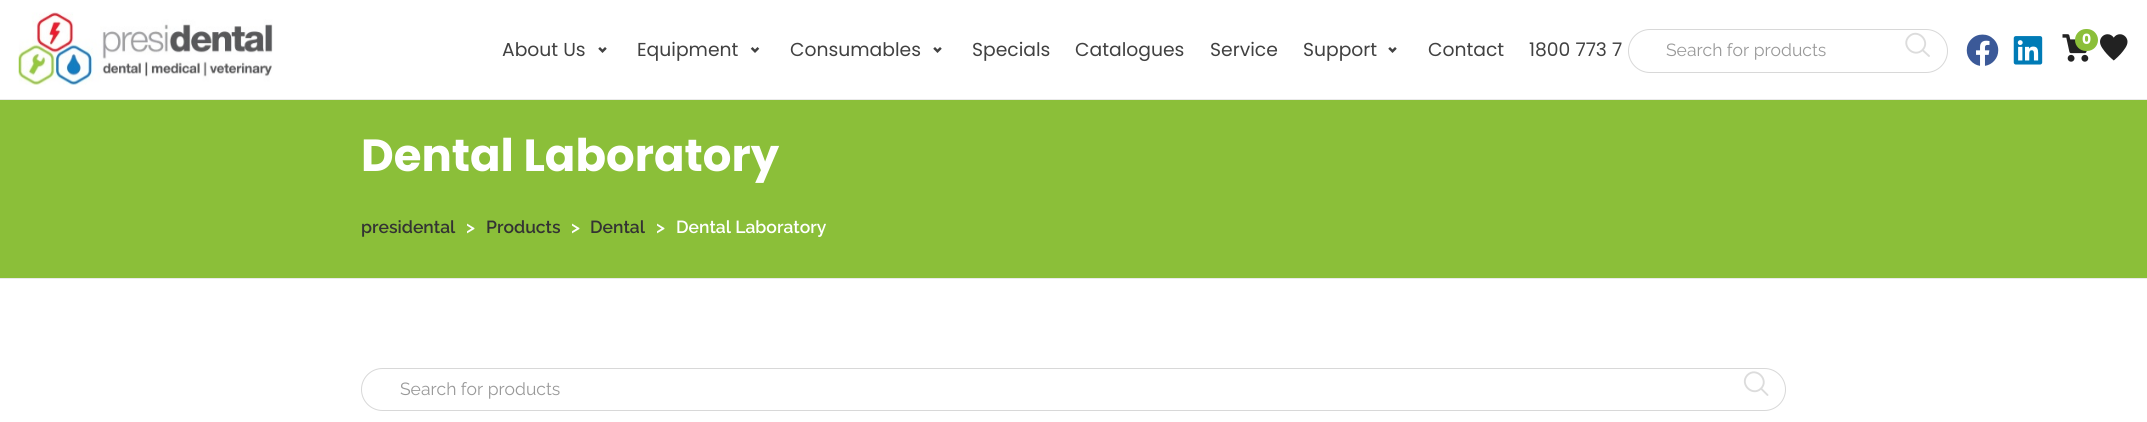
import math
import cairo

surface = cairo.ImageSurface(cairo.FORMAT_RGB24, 2147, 422)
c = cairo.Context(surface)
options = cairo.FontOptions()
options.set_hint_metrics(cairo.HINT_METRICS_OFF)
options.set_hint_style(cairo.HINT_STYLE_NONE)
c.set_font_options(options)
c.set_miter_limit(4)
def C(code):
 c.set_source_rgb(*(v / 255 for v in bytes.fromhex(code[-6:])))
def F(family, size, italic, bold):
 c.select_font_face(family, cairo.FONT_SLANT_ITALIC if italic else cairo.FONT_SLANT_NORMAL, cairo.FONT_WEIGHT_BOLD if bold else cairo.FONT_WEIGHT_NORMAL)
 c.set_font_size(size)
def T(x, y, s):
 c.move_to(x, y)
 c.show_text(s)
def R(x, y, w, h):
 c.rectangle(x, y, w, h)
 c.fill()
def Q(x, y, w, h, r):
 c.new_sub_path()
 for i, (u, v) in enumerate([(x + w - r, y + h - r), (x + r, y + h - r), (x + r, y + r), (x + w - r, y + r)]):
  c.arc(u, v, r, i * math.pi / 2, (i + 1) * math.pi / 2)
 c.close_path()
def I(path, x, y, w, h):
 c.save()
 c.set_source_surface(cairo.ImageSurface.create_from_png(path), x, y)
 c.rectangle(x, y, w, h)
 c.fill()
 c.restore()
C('ffffff')
c.paint()
C('eaeaea')
R(0,99,2147,1)
I('1.png',18,12,255,73)
F('Poppins',18.75,0,0)
C('414141')
T(502,56,'About Us')
I('2.png',598,47,9,6)
T(637,56,'Equipment')
I('3.png',750,47,10,6)
T(790,56,'Consumables')
I('2.png',933,47,9,6)
T(972,56,'Specials')
T(1075,56,'Catalogues')
T(1210,56,'Service')
T(1303,56,'Support')
I('2.png',1388,47,9,6)
T(1428,56,'Contact')
T(1529,56,'1800 773 7')
Q(1628.5,29.5,319,43,21.5)
C('d8d8d8')
c.set_line_width(1)
c.stroke()
F('Raleway',17.5,0,0)
C('999999')
T(1666,56,'Search for products')
c.new_path()
c.move_to(1929,56)
c.line_to(1922.5,50)
c.move_to(1922.5,50)
c.curve_to(1931,41,1917.5,28,1909,36.5)
c.curve_to(1900.5,45,1913.5,58.5,1922.5,50)
c.close_path()
C('dcdcdc')
c.set_line_width(1.9)
c.set_line_cap(cairo.LINE_CAP_ROUND)
c.set_line_join(cairo.LINE_JOIN_ROUND)
c.stroke()
I('4.png',1966,34,33,32)
I('5.png',2013,36,30,29)
I('6.png',2062,34,27,28)
C('8bbf39')
Q(2075,29,23,22,11)
c.fill()
F('Poppins',14,0,1)
C('ffffff')
T(2082,44,'0')
I('7.png',2100,34,28,27)
C('8bbf39')
R(0,100,2147,178)
C('eaeaea')
R(0,278,2147,1)
F('Poppins',45,0,1)
C('ffffff')
T(361,171,'Dental Laboratory')
F('Raleway SemiBold',17.5,0,0)
C('333333')
T(361,233,'presidental')
C('ffffff')
T(466,233,'>')
C('333333')
T(486,233,'Products')
C('ffffff')
T(571,233,'>')
C('333333')
T(590,233,'Dental')
C('ffffff')
T(656,233,'>')
T(676,233,'Dental Laboratory')
Q(361.5,368.5,1424,42,21)
C('d8d8d8')
c.set_line_width(1)
c.set_line_cap(cairo.LINE_CAP_BUTT)
c.set_line_join(cairo.LINE_JOIN_MITER)
c.stroke()
F('Raleway',17.5,0,0)
C('999999')
T(400,395,'Search for products')
c.new_path()
c.move_to(1767.5,395)
c.line_to(1761,388.5)
c.move_to(1761,388.5)
c.curve_to(1769.5,380,1756.5,366.5,1747.5,375)
c.curve_to(1739,384,1752.5,397,1761,388.5)
c.close_path()
C('dcdcdc')
c.set_line_width(1.9)
c.set_line_cap(cairo.LINE_CAP_ROUND)
c.set_line_join(cairo.LINE_JOIN_ROUND)
c.stroke()
surface.write_to_png('o.png')
